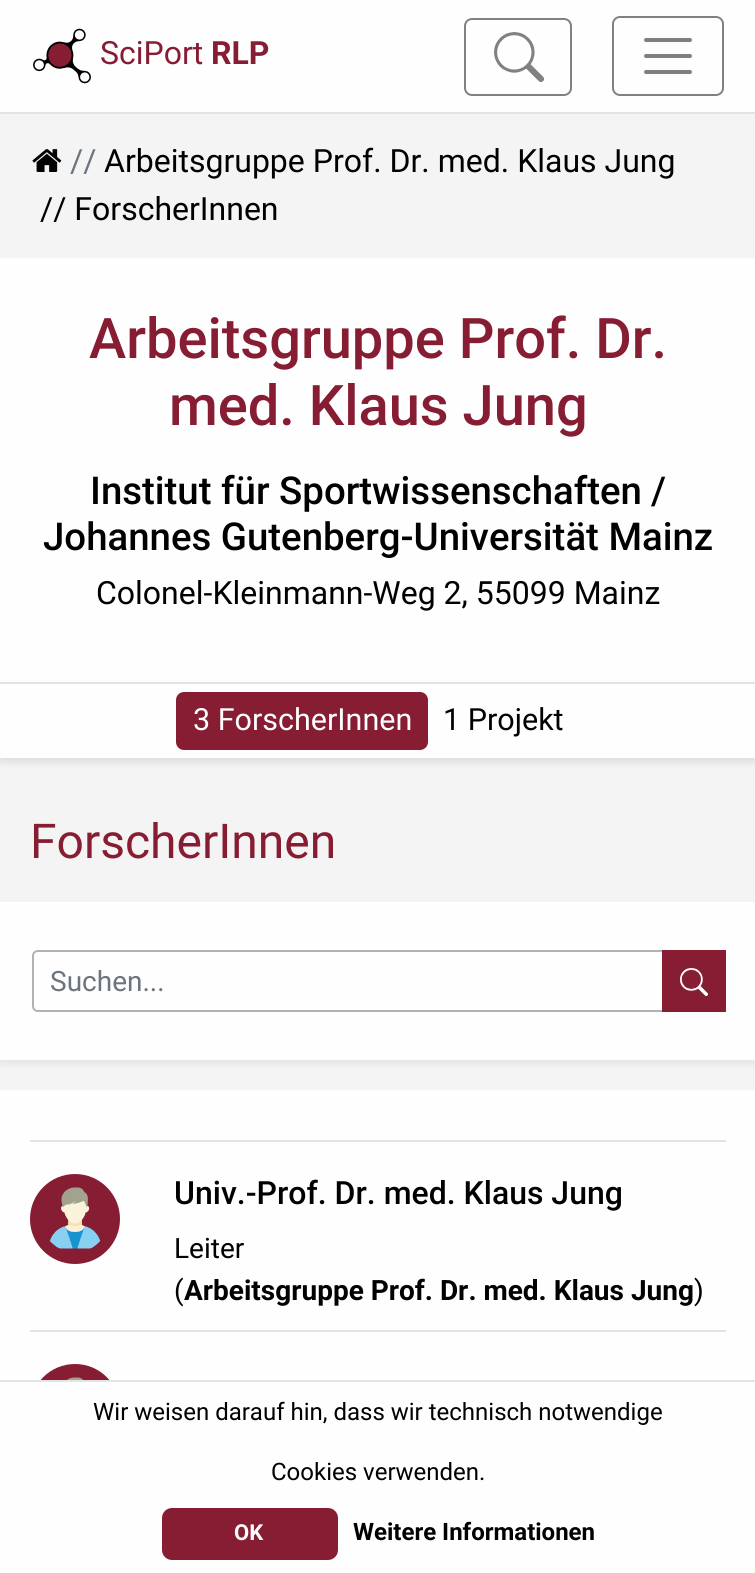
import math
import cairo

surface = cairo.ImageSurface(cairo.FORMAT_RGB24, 755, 1573)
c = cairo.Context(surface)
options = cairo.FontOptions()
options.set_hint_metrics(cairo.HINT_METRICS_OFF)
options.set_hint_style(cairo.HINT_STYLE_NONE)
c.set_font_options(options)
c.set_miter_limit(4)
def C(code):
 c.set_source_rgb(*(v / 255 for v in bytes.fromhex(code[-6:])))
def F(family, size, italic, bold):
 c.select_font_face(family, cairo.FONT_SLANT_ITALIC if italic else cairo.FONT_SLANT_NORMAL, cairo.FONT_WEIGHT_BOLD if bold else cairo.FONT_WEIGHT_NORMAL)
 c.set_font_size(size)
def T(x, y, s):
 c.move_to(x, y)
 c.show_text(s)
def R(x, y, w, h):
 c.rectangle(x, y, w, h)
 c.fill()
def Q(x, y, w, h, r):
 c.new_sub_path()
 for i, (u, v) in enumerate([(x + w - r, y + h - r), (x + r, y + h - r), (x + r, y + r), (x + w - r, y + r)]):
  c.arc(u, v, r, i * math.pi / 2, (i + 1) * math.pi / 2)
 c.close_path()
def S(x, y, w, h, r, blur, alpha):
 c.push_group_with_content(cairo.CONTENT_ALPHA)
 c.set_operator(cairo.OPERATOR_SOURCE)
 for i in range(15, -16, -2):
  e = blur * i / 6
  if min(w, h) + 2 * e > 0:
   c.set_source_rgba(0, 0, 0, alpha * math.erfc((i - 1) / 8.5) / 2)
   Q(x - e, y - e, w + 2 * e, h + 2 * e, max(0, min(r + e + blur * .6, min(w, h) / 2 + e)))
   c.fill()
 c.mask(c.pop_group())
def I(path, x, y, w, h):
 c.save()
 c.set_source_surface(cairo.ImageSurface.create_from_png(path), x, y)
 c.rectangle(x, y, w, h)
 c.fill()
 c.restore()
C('f4f4f4')
c.paint()
C('fefefe')
R(0,0,755,112)
C('e3e3e3')
R(0,112,755,2)
I('1.png',33,28,58,56)
F('Roboto',32,0,0)
C('871d33')
T(100,64,'SciPort')
F('Roboto',32,0,1)
T(211,64,'RLP')
Q(465,19,106,76,7)
C('818181')
c.stroke()
I('2.png',494,32,50,50)
Q(613,17,110,78,7)
c.stroke()
c.new_path()
c.move_to(646,40)
c.line_to(690,40)
c.move_to(646,56)
c.line_to(690,56)
c.move_to(646,72)
c.line_to(690,72)
C('7f7f7f')
c.set_line_width(4)
c.set_line_cap(cairo.LINE_CAP_ROUND)
c.stroke()
I('3.png',32,149,30,23)
F('Roboto',32,0,0)
C('6c757d')
T(70,172,'//')
C('010101')
T(104,172,'Arbeitsgruppe Prof. Dr. med. Klaus Jung')
T(40,220,'// ForscherInnen')
C('fefefe')
R(0,258,755,424)
F('Roboto Medium',56,0,0)
C('871d33')
T(89,358,'Arbeitsgruppe Prof. Dr.')
T(169,425,'med. Klaus Jung')
F('Roboto Medium',38.4,0,0)
C('010101')
T(90,504,'Institut für Sportwissenschaften')
T(651,504,'/')
T(43,550,'Johannes Gutenberg-Universität Mainz')
F('Roboto',32,0,0)
T(96,604,'Colonel-Kleinmann-Weg 2, 55099 Mainz')
C('000000')
S(0,686,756,76,0,4,.1)
C('fefefe')
R(0,684,755,74)
C('e3e3e3')
R(0,682,755,2)
C('871d33')
Q(176,692,252,58,8)
c.fill()
F('Roboto',30.5,0,0)
C('ffffff')
T(193,730,'3 ForscherInnen')
C('010101')
T(443,730,'1 Projekt')
F('Roboto',48,0,0)
C('871d33')
T(30,858,'ForscherInnen')
C('000000')
S(0,906,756,158,0,4,.07)
C('fefefe')
R(0,902,755,158)
c.new_path()
c.move_to(38,951)
c.line_to(663,951)
c.line_to(663,1011)
c.line_to(38,1011)
c.curve_to(35,1011,33,1009,33,1006)
c.line_to(33,956)
c.curve_to(33,953,35,951,38,951)
c.close_path()
C('b2b2b2')
c.set_line_width(2)
c.set_line_cap(cairo.LINE_CAP_BUTT)
c.stroke()
F('Roboto',28,0,0)
C('6c757d')
T(50,991,'Suchen...')
C('871d33')
R(662,950,64,62)
I('4.png',680,968,28,28)
C('fefefe')
R(0,1090,755,290)
C('e3e3e3')
R(30,1140,696,2)
C('871d33')
c.arc(75,1219,45,0,2 * math.pi)
c.fill()
I('5.png',49,1187,52,62)
F('Roboto Medium',32,0,0)
C('010101')
T(174,1204,'Univ.-Prof. Dr. med. Klaus Jung')
F('Roboto',28,0,0)
T(174,1258,'Leiter')
T(174,1300,'(')
F('Roboto',28,0,1)
T(184,1300,'Arbeitsgruppe Prof. Dr. med. Klaus Jung')
F('Roboto',28,0,0)
T(694,1300,')')
C('e3e3e3')
R(30,1330,696,2)
C('871d33')
c.new_path()
c.arc(75,1409,45,0,2 * math.pi)
c.fill()
I('6.png',67,1377,16,3)
C('fefefe')
R(0,1382,755,191)
C('e4e4e4')
R(0,1380,755,2)
F('Roboto',24,0,0)
C('010101')
T(93,1420,'Wir weisen darauf hin, dass wir technisch notwendige')
T(271,1480,'Cookies verwenden.')
C('871d33')
Q(163,1509,174,50,9)
c.fill_preserve()
c.stroke()
F('Roboto',22,0,1)
C('ffffff')
T(234,1540,'OK')
F('Roboto',24,0,1)
C('010101')
T(353,1540,'Weitere Informationen')
surface.write_to_png('o.png')
